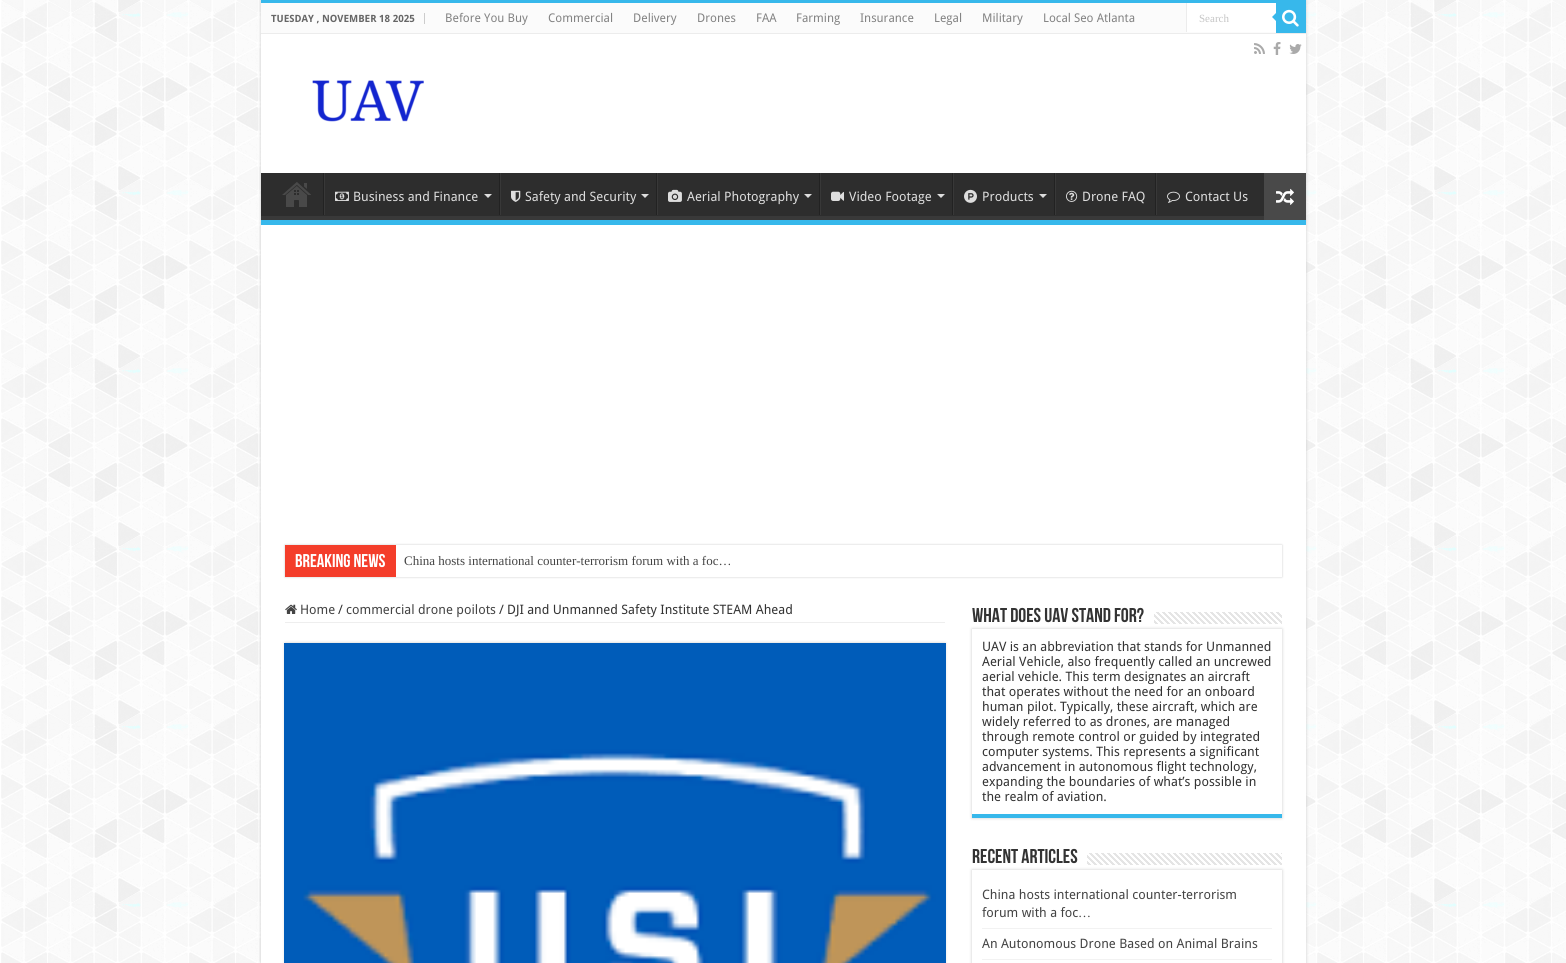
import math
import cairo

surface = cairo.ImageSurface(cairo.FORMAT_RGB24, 1566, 963)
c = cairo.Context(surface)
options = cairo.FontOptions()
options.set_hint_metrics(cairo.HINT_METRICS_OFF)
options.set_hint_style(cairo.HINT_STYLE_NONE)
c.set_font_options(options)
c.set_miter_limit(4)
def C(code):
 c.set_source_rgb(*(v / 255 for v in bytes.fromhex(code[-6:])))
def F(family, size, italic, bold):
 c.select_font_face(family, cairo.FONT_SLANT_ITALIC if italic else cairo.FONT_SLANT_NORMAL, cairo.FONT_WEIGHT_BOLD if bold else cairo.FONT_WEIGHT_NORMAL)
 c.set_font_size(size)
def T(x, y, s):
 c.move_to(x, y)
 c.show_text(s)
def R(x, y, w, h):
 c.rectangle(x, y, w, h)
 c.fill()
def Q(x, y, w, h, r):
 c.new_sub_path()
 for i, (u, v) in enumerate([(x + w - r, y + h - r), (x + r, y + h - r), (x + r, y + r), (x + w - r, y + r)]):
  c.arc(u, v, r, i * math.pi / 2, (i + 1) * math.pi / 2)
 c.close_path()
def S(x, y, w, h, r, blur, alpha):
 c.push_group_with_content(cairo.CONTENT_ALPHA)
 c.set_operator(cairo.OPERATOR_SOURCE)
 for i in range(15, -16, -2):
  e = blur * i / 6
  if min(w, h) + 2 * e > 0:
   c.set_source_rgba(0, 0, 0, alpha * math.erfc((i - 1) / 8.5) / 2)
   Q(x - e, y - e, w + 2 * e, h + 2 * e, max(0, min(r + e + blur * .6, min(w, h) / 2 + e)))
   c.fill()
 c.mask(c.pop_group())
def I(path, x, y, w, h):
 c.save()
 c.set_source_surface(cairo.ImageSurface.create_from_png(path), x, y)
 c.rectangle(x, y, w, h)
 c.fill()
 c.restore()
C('ffffff')
c.paint()
I('1.png',1,0,1565,963)
C('cacaca')
S(261,0,1045,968,0,1.5,1)
C('ffffff')
R(261,34,1045,929)
C('37b8eb')
R(261,0,1045,3)
C('fbfbfb')
R(261,3,1015,30)
C('ececec')
R(261,33,1045,1)
C('cccccc')
R(424,13,1,11)
F('Droid Sans',10,0,1)
C('666666')
T(271,22,'TUESDAY , NOVEMBER 18 2025')
F('Droid Sans',12,0,0)
C('838383')
T(445,22,'Before You Buy')
T(548,22,'Commercial')
T(633,22,'Delivery')
T(697,22,'Drones')
T(756,22,'FAA')
T(796,22,'Farming')
T(860,22,'Insurance')
T(934,22,'Legal')
T(982,22,'Military')
T(1043,22,'Local Seo Atlanta')
C('ffffff')
R(1187,3,89,29)
C('ececec')
R(1186,3,1,29)
F('Liberation Serif',11,0,0)
C('c5c5c5')
T(1199,22,'Search')
C('37b8eb')
R(1276,3,30,30)
I('2.png',1282,9,17,18)
c.new_path()
c.move_to(1276,13)
c.line_to(1276,21)
c.line_to(1272,17)
c.close_path()
c.fill()
I('3.png',1254,43,11,11)
I('4.png',1273,42,8,13)
I('5.png',1289,44,13,10)
I('6.png',312,80,112,42)
C('2d2d2d')
R(261,173,1003,43)
c.save()
c.rectangle(261,173,1045,47)
c.clip()
C('393939')
c.set_fill_rule(cairo.FILL_RULE_EVEN_ODD)
c.new_path()
c.move_to(162,74)
c.line_to(1405,74)
c.line_to(1405,319)
c.line_to(162,319)
c.close_path()
c.move_to(260,167)
c.line_to(1306,167)
c.line_to(1306,207)
c.curve_to(1306,208,1307,216,1305,216)
c.line_to(260,216)
c.line_to(259,215)
c.line_to(259,167)
c.close_path()
c.fill()
c.restore()
C('37b8eb')
R(261,220,1045,5)
I('7.png',282,182,29,25)
C('222222')
R(323,173,1,42)
C('383838')
R(324,173,1,42)
I('8.png',335,191,14,10)
F('Droid Sans',13,0,0)
C('dddddd')
T(353,201,'Business and Finance')
c.new_path()
c.move_to(484,194)
c.line_to(492,194)
c.line_to(488,198)
c.close_path()
c.fill()
C('222222')
R(499,173,1,42)
C('383838')
R(500,173,1,42)
I('9.png',511,190,10,12)
C('dddddd')
T(525,201,'Safety and Security')
c.new_path()
c.move_to(641,194)
c.line_to(649,194)
c.line_to(645,198)
c.close_path()
c.fill()
C('222222')
R(656,173,1,42)
C('383838')
R(657,173,1,42)
I('10.png',668,189,14,13)
C('dddddd')
T(687,201,'Aerial Photography')
c.new_path()
c.move_to(804,194)
c.line_to(812,194)
c.line_to(808,198)
c.close_path()
c.fill()
C('222222')
R(819,173,1,42)
C('383838')
R(820,173,1,42)
I('11.png',831,191,13,10)
C('dddddd')
T(849,201,'Video Footage')
c.new_path()
c.move_to(937,194)
c.line_to(945,194)
c.line_to(941,198)
c.close_path()
c.fill()
C('222222')
R(952,173,1,42)
C('383838')
R(953,173,1,42)
I('12.png',964,189,13,14)
C('dddddd')
T(982,201,'Products')
c.new_path()
c.move_to(1039,194)
c.line_to(1047,194)
c.line_to(1043,198)
c.close_path()
c.fill()
C('222222')
R(1054,173,1,42)
C('383838')
R(1055,173,1,42)
I('13.png',1066,190,12,12)
C('dddddd')
T(1082,201,'Drone FAQ')
C('222222')
R(1155,173,1,42)
C('383838')
R(1156,173,1,42)
I('14.png',1167,191,13,12)
C('dddddd')
T(1185,201,'Contact Us')
C('494949')
R(1264,173,42,47)
I('15.png',1276,188,18,17)
c.save()
c.set_fill_rule(cairo.FILL_RULE_EVEN_ODD)
c.new_path()
c.move_to(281,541)
c.line_to(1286,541)
c.line_to(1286,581)
c.line_to(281,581)
c.close_path()
c.move_to(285,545)
c.line_to(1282,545)
c.line_to(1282,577)
c.line_to(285,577)
c.close_path()
c.clip()
C('cacaca')
S(285,545,997,32,0,1,1)
c.restore()
C('f43d2a')
R(285,545,111,32)
F('Bebas Neue',18.5,0,1)
C('ffffff')
T(295,567,'Breaking News')
F('Liberation Serif',13,0,0)
C('444444')
T(404,565,'China hosts international counter-terrorism forum with a foc…')
C('eeeeee')
R(285,622,660,1)
I('16.png',285,604,12,10)
F('Droid Sans',13,0,0)
C('444444')
T(300,614,'Home')
C('333333')
T(338,614,'/')
C('444444')
T(346,614,'commercial drone poilots')
C('333333')
T(499,614,'/')
T(507,614,'DJI and Unmanned Safety Institute STEAM Ahead')
C('cacaca')
S(285,643,660,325,0,1.5,1)
I('17.png',284,643,662,320)
F('Bebas Neue',20,0,1)
C('333333')
T(972,622,'What does UAV stand for?')
c.save()
c.set_fill_rule(cairo.FILL_RULE_EVEN_ODD)
c.new_path()
c.move_to(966,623)
c.line_to(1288,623)
c.line_to(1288,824)
c.line_to(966,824)
c.close_path()
c.move_to(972,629)
c.line_to(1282,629)
c.line_to(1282,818)
c.line_to(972,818)
c.close_path()
c.clip()
C('cacaca')
S(972,629,310,189,0,1.5,1)
c.restore()
I('18.png',1154,612,128,12)
C('37b8eb')
R(972,814,310,4)
F('Droid Sans',13,0,0)
C('333333')
T(982,651,'UAV is an abbreviation that stands for Unmanned')
T(982,666,'Aerial Vehicle, also frequently called an uncrewed')
T(982,681,'aerial vehicle. This term designates an aircraft')
T(982,696,'that operates without the need for an onboard')
T(982,711,'human pilot. Typically, these aircraft, which are')
T(982,726,'widely referred to as drones, are managed')
T(982,741,'through remote control or guided by integrated')
T(982,756,'computer systems. This represents a significant')
T(982,771,'advancement in autonomous flight technology,')
T(982,786,'expanding the boundaries of what’s possible in')
T(982,801,'the realm of aviation.')
F('Bebas Neue',20,0,1)
T(972,863,'Recent Articles')
c.save()
c.set_fill_rule(cairo.FILL_RULE_EVEN_ODD)
c.new_path()
c.move_to(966,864)
c.line_to(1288,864)
c.line_to(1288,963)
c.line_to(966,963)
c.close_path()
c.move_to(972,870)
c.line_to(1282,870)
c.line_to(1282,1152)
c.line_to(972,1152)
c.close_path()
c.clip()
C('cacaca')
S(972,870,310,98,0,1.5,1)
c.restore()
I('19.png',1087,853,195,12)
C('f2f2f2')
R(982,928,290,1)
F('Droid Sans',13,0,0)
C('444444')
T(982,899,'China hosts international counter-terrorism')
T(982,917,'forum with a foc')
F('Liberation Serif',13,0,0)
T(1078,917,'…')
C('f2f2f2')
R(982,959,290,1)
F('Droid Sans',13,0,0)
C('444444')
T(982,948,'An Autonomous Drone Based on Animal Brains')
surface.write_to_png('o.png')
